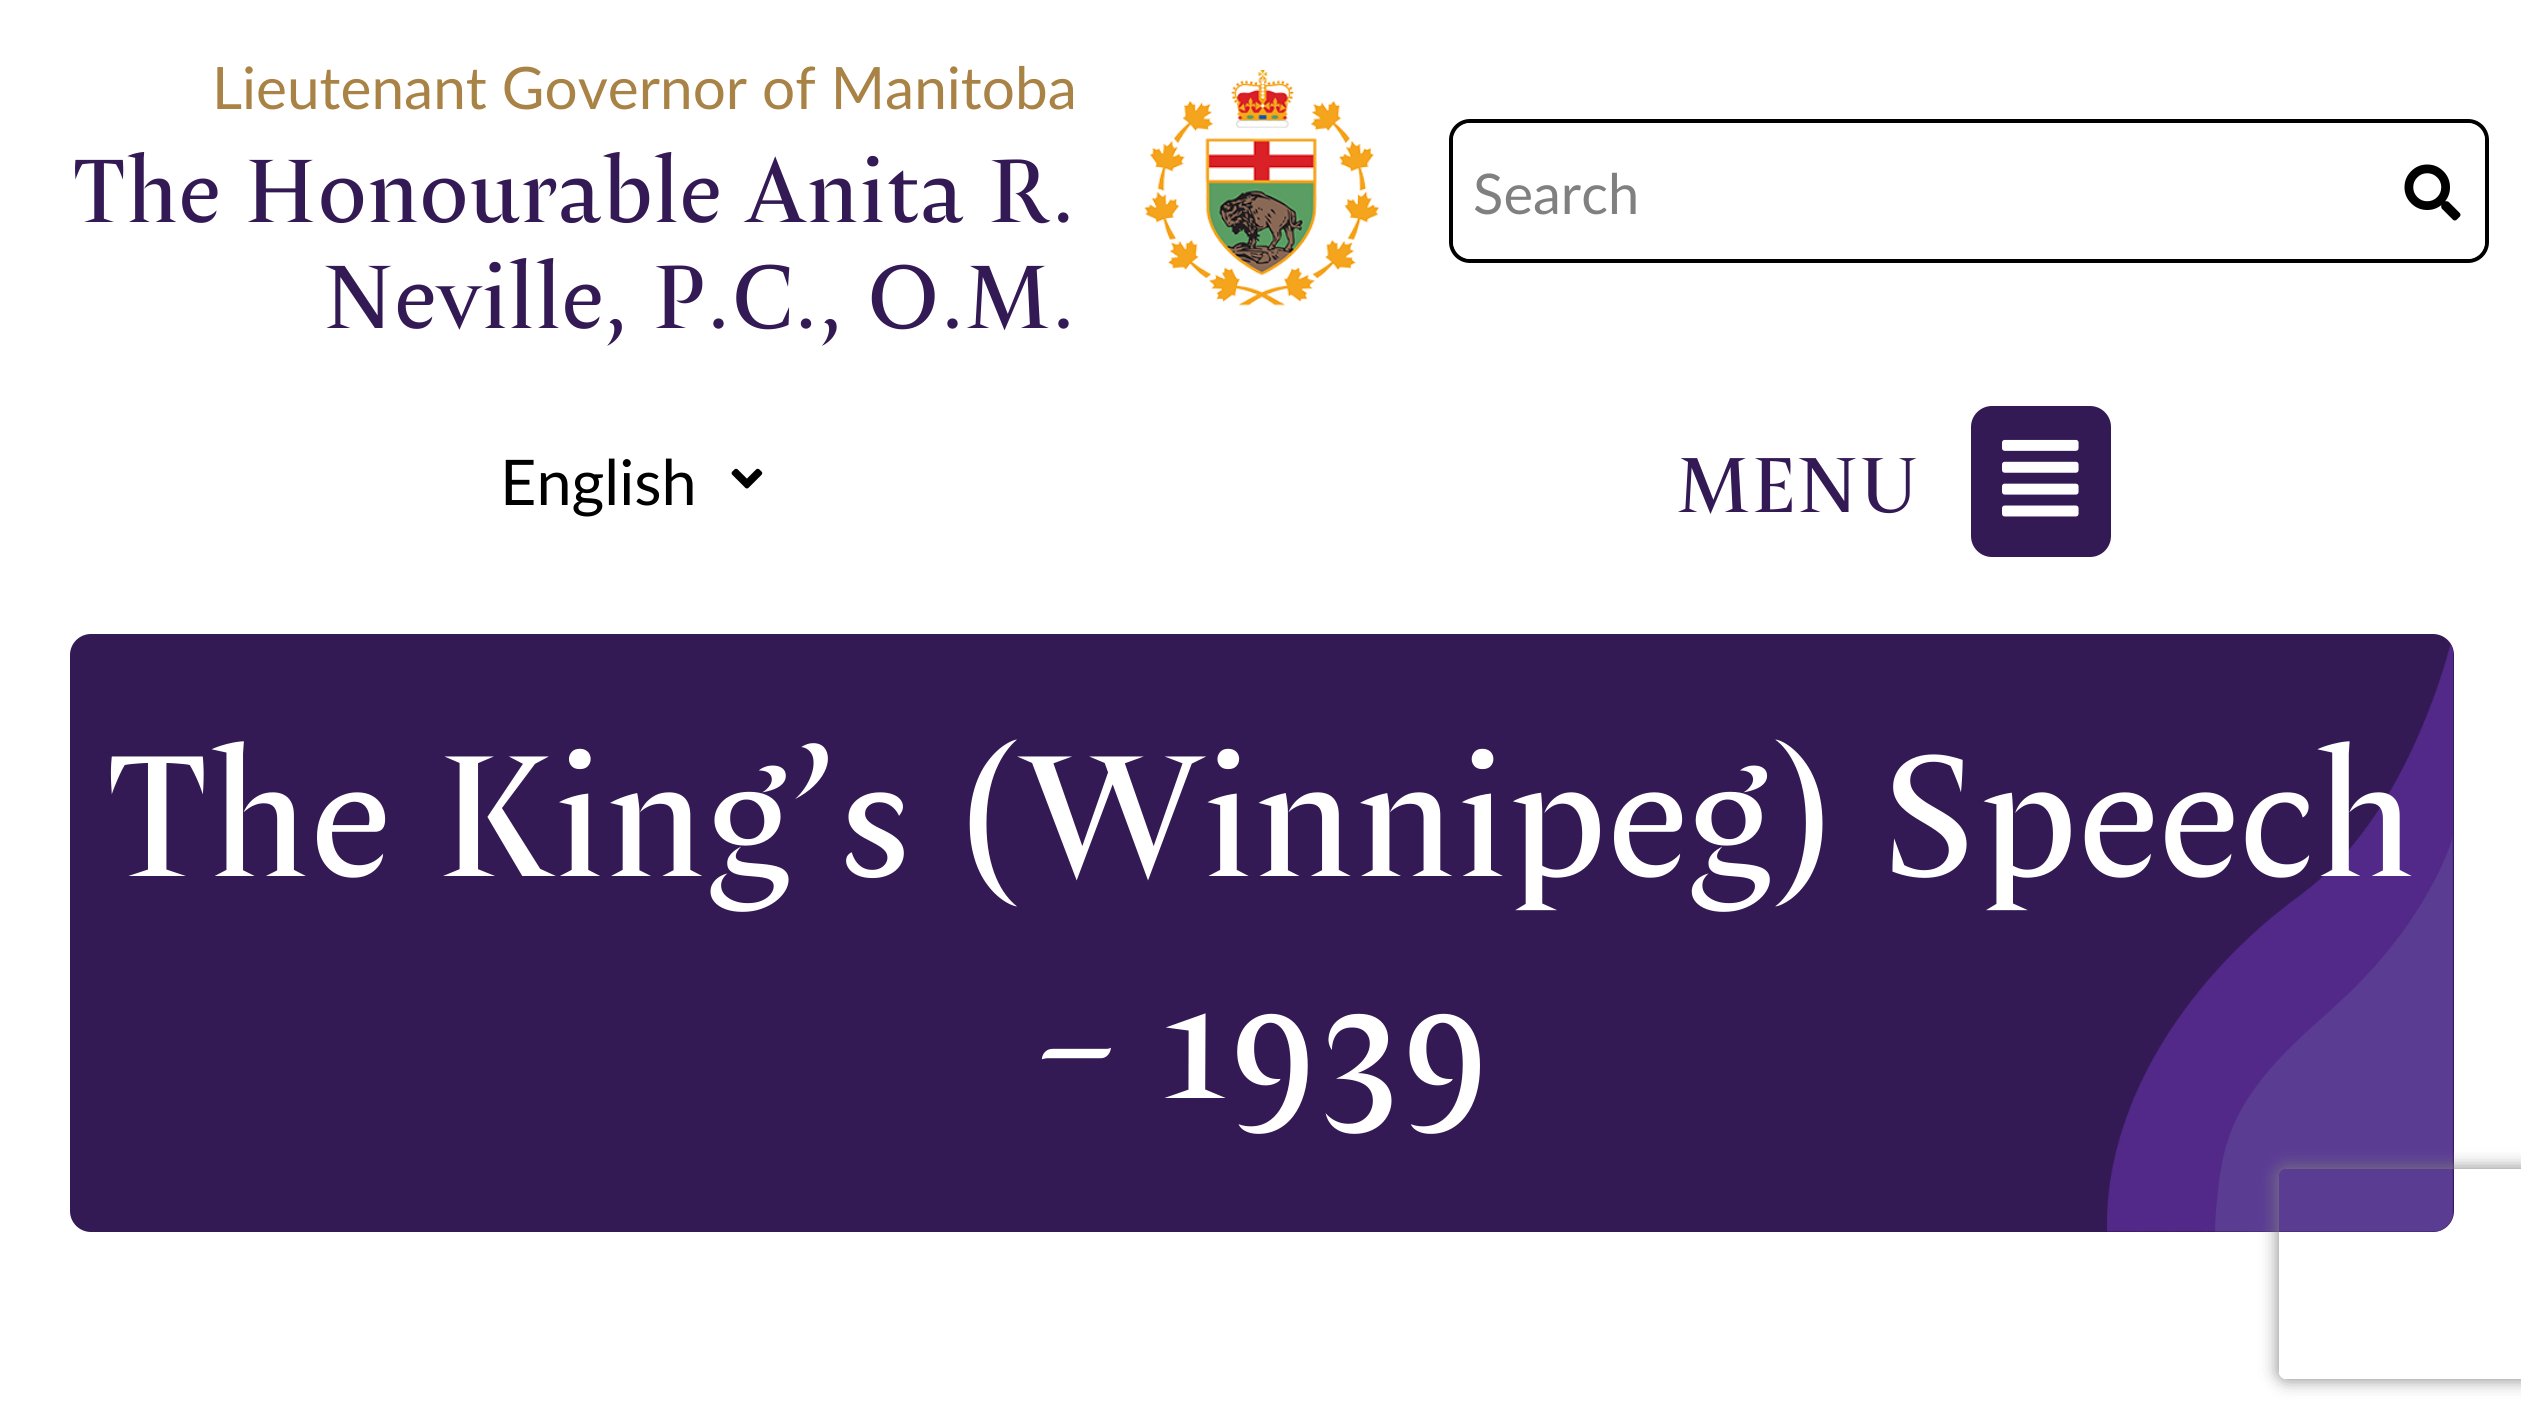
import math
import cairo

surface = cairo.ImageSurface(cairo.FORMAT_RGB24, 2521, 1426)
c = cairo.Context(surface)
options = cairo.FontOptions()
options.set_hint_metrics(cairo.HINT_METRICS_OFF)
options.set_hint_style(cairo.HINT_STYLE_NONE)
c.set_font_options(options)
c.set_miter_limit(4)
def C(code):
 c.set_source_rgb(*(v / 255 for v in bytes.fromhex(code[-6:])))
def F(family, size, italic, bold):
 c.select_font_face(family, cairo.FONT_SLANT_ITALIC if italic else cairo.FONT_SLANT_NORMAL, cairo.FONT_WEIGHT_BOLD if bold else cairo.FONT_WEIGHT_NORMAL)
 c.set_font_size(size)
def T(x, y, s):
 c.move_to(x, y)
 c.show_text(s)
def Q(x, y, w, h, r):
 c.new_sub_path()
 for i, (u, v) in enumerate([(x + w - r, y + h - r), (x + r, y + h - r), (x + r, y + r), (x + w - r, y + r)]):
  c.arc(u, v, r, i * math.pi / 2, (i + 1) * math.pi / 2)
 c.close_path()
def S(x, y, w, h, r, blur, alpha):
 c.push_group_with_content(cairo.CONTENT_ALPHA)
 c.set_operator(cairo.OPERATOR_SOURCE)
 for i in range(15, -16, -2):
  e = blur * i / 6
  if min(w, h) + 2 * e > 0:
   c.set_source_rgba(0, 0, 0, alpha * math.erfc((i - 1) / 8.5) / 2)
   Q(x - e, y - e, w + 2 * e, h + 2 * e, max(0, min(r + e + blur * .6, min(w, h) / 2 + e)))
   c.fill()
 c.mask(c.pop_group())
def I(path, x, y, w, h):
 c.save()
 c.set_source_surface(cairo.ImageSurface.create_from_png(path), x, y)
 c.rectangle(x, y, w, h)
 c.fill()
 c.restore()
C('ffffff')
c.paint()
F('Lato',58.5,0,0)
C('a98245')
T(212,109,'Lieutenant Governor of Manitoba')
F('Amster',88.75,0,0)
C('341a55')
T(73,222,'The Honourable Anita R.')
T(322,328,'Neville, P.C., O.M.')
I('1.png',1144,70,235,236)
Q(1451,121,1036,140,19)
C('000000')
c.set_line_width(4)
c.stroke()
C('ffffff')
c.new_path()
c.move_to(1471,123)
c.line_to(2380,123)
c.line_to(2380,259)
c.line_to(1471,259)
c.curve_to(1461,259,1453,251,1453,241)
c.line_to(1453,141)
c.curve_to(1453,131,1461,123,1471,123)
c.close_path()
c.fill()
F('Lato',56,0,0)
C('808080')
T(1473,214,'Search')
C('ffffff')
c.new_path()
c.move_to(2380,123)
c.line_to(2467,123)
c.curve_to(2477,123,2485,131,2485,141)
c.line_to(2485,241)
c.curve_to(2485,251,2477,259,2467,259)
c.line_to(2380,259)
c.close_path()
c.fill()
I('2.png',2404,164,57,57)
F('Lato',63,0,0)
C('000000')
T(500,505,'English')
I('3.png',731,468,32,21)
F('Amster',77,0,0)
C('341a55')
T(1676,512,'MENU')
Q(1971,406,140,151,21)
c.fill()
I('4.png',2002,439,77,78)
Q(70,634,2384,598,21)
c.fill()
I('5.png',2107,643,347,589)
F('Amster',170.75,0,0)
C('ffffff')
T(107,876,'The King’s (Winnipeg) Speech')
T(1032,1098,'– 1939')
c.save()
c.set_fill_rule(cairo.FILL_RULE_EVEN_ODD)
c.new_path()
c.move_to(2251,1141)
c.line_to(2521,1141)
c.line_to(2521,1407)
c.line_to(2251,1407)
c.close_path()
c.move_to(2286,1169)
c.line_to(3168,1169)
c.curve_to(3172,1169,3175,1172,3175,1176)
c.line_to(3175,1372)
c.curve_to(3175,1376,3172,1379,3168,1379)
c.line_to(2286,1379)
c.curve_to(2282,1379,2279,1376,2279,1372)
c.line_to(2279,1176)
c.curve_to(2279,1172,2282,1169,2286,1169)
c.close_path()
c.clip()
C('808080')
S(2279,1169,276,210,7,9,1)
c.restore()
surface.write_to_png('o.png')
